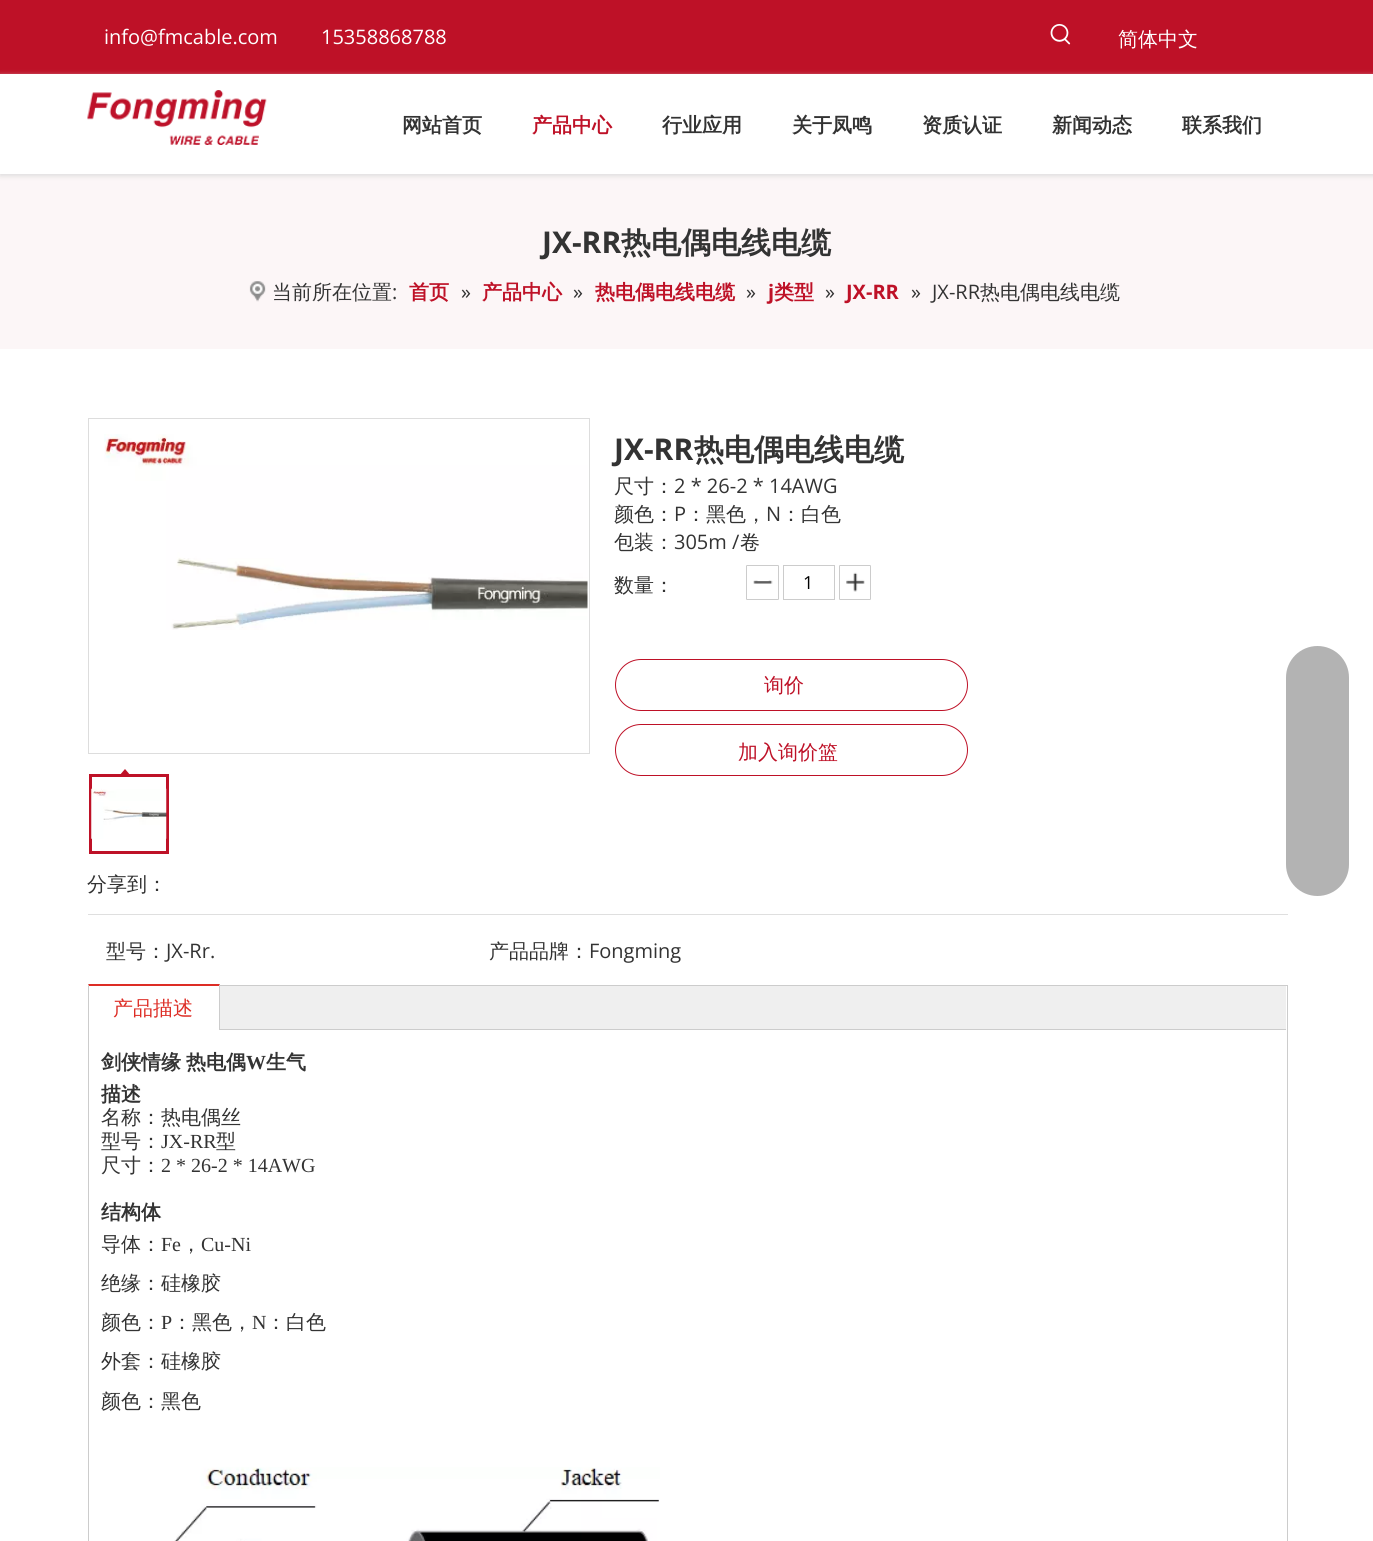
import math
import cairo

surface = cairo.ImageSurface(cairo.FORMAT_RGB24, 1373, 1541)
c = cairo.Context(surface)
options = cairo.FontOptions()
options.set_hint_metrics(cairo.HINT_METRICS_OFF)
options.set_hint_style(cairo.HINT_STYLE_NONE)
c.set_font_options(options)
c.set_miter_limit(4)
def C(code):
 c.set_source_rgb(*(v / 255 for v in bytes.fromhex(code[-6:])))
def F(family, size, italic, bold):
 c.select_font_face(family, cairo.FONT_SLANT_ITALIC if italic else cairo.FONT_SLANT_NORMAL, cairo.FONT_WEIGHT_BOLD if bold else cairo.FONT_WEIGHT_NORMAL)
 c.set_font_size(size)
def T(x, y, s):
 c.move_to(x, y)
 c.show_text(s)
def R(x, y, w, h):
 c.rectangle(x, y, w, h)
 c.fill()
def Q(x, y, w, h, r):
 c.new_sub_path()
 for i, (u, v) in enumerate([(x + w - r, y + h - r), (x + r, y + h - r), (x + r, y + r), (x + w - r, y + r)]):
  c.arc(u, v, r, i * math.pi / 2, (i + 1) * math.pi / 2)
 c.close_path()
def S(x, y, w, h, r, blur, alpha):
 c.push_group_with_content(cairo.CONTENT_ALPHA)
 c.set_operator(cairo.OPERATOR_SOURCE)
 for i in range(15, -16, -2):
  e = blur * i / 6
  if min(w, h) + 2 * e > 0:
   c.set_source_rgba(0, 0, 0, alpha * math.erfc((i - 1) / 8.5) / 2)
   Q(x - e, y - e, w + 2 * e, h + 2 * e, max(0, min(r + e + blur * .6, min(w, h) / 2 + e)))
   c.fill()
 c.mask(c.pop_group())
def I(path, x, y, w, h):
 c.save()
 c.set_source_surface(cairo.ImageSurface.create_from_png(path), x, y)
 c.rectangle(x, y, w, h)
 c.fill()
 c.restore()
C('ffffff')
c.paint()
C('be1127')
R(0,0,1373,74)
F('Open Sans',20,0,0)
C('ffffff')
T(104,44,'info@fmcable.com')
T(321,44,'15358868788')
I('1.png',1050,24,21,21)
F('WenQuanYi Zen Hei Medium',20,0,0)
T(1118,46,'简体中文')
C('fcf6f7')
R(0,174,1373,175)
c.save()
c.set_fill_rule(cairo.FILL_RULE_EVEN_ODD)
c.new_path()
c.move_to(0,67)
c.line_to(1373,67)
c.line_to(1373,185)
c.line_to(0,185)
c.close_path()
c.move_to(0,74)
c.line_to(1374,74)
c.line_to(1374,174)
c.line_to(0,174)
c.close_path()
c.clip()
C('dddddd')
S(0,76,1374,100,0,2.5,1)
c.restore()
I('2.png',87,90,180,55)
F('WenQuanYi Zen Hei',20,0,1)
C('333333')
T(402,132,'网站首页')
C('be1127')
T(532,132,'产品中心')
C('333333')
T(662,132,'行业应用')
T(792,132,'关于凤鸣')
T(922,132,'资质认证')
T(1052,132,'新闻动态')
T(1182,132,'联系我们')
F('Open Sans',30,0,1)
T(542,253,'JX-RR')
F('WenQuanYi Zen Hei',30,0,1)
T(621,253,'热电偶电线电缆')
I('3.png',249,281,17,21)
F('WenQuanYi Zen Hei Medium',20,0,0)
T(272,299,'当前所在位置')
F('Open Sans',20,0,0)
T(392,299,':')
F('WenQuanYi Zen Hei',20,0,1)
C('be1127')
T(409,299,'首页')
F('Open Sans',20,0,0)
C('333333')
T(461,299,'»')
F('WenQuanYi Zen Hei',20,0,1)
C('be1127')
T(482,299,'产品中心')
F('Open Sans',20,0,0)
C('333333')
T(573,299,'»')
F('WenQuanYi Zen Hei',20,0,1)
C('be1127')
T(595,299,'热电偶电线电缆')
F('Open Sans',20,0,0)
C('333333')
T(746,299,'»')
F('Open Sans',20,0,1)
C('be1127')
T(768,299,'j')
F('WenQuanYi Zen Hei',20,0,1)
T(774,299,'类型')
F('Open Sans',20,0,0)
C('333333')
T(825,299,'»')
F('Open Sans',20,0,1)
C('be1127')
T(846,299,'JX-RR')
F('Open Sans',20,0,0)
C('333333')
T(911,299,'»')
T(932,299,'JX-RR')
F('WenQuanYi Zen Hei Medium',20,0,0)
T(980,299,'热电偶电线电缆')
F('Open Sans',30,0,1)
T(614,460,'JX-RR')
F('WenQuanYi Zen Hei',30,0,1)
T(694,460,'热电偶电线电缆')
F('WenQuanYi Zen Hei Medium',20,0,0)
T(614,493,'尺寸：')
F('Open Sans',20,0,0)
T(674,493,'2 * 26-2 * 14AWG')
F('WenQuanYi Zen Hei Medium',20,0,0)
T(614,521,'颜色：')
F('Open Sans',20,0,0)
T(674,521,'P')
F('WenQuanYi Zen Hei Medium',20,0,0)
T(686,521,'：黑色，')
F('Open Sans',20,0,0)
T(766,521,'N')
F('WenQuanYi Zen Hei Medium',20,0,0)
T(781,521,'：白色')
T(614,549,'包装：')
F('Open Sans',20,0,0)
T(674,549,'305m /')
F('WenQuanYi Zen Hei Medium',20,0,0)
T(740,549,'卷')
T(614,592,'数量：')
I('4.png',753,580,20,4)
Q(746.5,565.5,32,34,.5)
C('cccccc')
c.set_line_width(1)
c.stroke()
c.rectangle(783.5,565.5,51,34)
c.stroke()
F('Open Sans',18,0,0)
C('000000')
T(803,589,'1')
I('5.png',846,572,19,20)
Q(839.5,565.5,31,34,.5)
C('cccccc')
c.stroke()
Q(615.5,659.5,352,51,25.5)
C('be1127')
c.stroke()
F('WenQuanYi Zen Hei Medium',20,0,0)
T(764,692,'询价')
Q(615.5,724.5,352,51,25.5)
c.stroke()
T(738,759,'加入询价篮')
c.rectangle(88.5,418.5,501,335)
C('dddddd')
c.stroke()
I('6.png',104,434,484,196)
c.rectangle(90.5,775.5,77,77)
C('be1127')
c.set_line_width(3)
c.stroke()
c.new_path()
c.move_to(131,776)
c.line_to(119,776)
c.line_to(125,769)
c.close_path()
c.fill()
I('7.png',91,788,76,51)
C('333333')
T(87,891,'分享到：')
C('dfdfdf')
R(88,914,1200,1)
C('333333')
T(106,958,'型号：')
F('Open Sans',20,0,0)
T(166,958,'JX-Rr.')
F('WenQuanYi Zen Hei Medium',20,0,0)
T(489,958,'产品品牌：')
F('Open Sans',20,0,0)
T(589,958,'Fongming')
c.rectangle(88.5,985.5,1199,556)
C('cccccc')
c.set_line_width(1)
c.stroke()
C('efefef')
R(220,986,1066,43)
C('cccccc')
R(220,1029,1066,1)
C('ffffff')
R(88,985,132,45)
C('dd2d25')
c.new_path()
c.move_to(88,984)
c.line_to(220,984)
c.line_to(219,986)
c.line_to(89,986)
c.close_path()
c.fill()
C('cccccc')
c.new_path()
c.move_to(220,984)
c.line_to(220,1030)
c.line_to(219,1030)
c.line_to(219,986)
c.close_path()
c.fill()
c.new_path()
c.move_to(88,1030)
c.line_to(88,984)
c.line_to(89,986)
c.line_to(89,1030)
c.close_path()
c.fill()
F('WenQuanYi Zen Hei Medium',20,0,0)
C('dd2d25')
T(113,1015,'产品描述')
F('WenQuanYi Zen Hei',20,0,1)
C('333333')
T(101,1069,'剑侠情缘')
T(186,1069,'热电偶')
F('Liberation Serif',20,0,1)
T(246,1069,'W')
F('WenQuanYi Zen Hei',20,0,1)
T(266,1069,'生气')
T(101,1101,'描述')
F('WenQuanYi Zen Hei Medium',20,0,0)
T(101,1124,'名称：热电偶丝')
T(101,1148,'型号：')
F('Liberation Serif',20,0,0)
T(161,1148,'JX-RR')
F('WenQuanYi Zen Hei Medium',20,0,0)
T(216,1148,'型')
T(101,1172,'尺寸：')
F('Liberation Serif',20,0,0)
T(161,1172,'2 * 26-2 * 14AWG')
F('WenQuanYi Zen Hei',20,0,1)
T(101,1219,'结构体')
F('WenQuanYi Zen Hei Medium',20,0,0)
T(101,1251,'导体：')
F('Liberation Serif',20,0,0)
T(161,1251,'Fe')
F('WenQuanYi Zen Hei Medium',20,0,0)
T(181,1251,'，')
F('Liberation Serif',20,0,0)
T(201,1251,'Cu-Ni')
F('WenQuanYi Zen Hei Medium',20,0,0)
T(101,1290,'绝缘：硅橡胶')
T(101,1329,'颜色：')
F('Liberation Serif',20,0,0)
T(161,1329,'P')
F('WenQuanYi Zen Hei Medium',20,0,0)
T(172,1329,'：黑色，')
F('Liberation Serif',20,0,0)
T(252,1329,'N')
F('WenQuanYi Zen Hei Medium',20,0,0)
T(266,1329,'：白色')
T(101,1368,'外套：硅橡胶')
T(101,1408,'颜色：黑色')
I('8.png',174,1467,486,74)
C('b3b3b3')
Q(1286,646,63,250,31.5)
c.fill()
surface.write_to_png('o.png')
